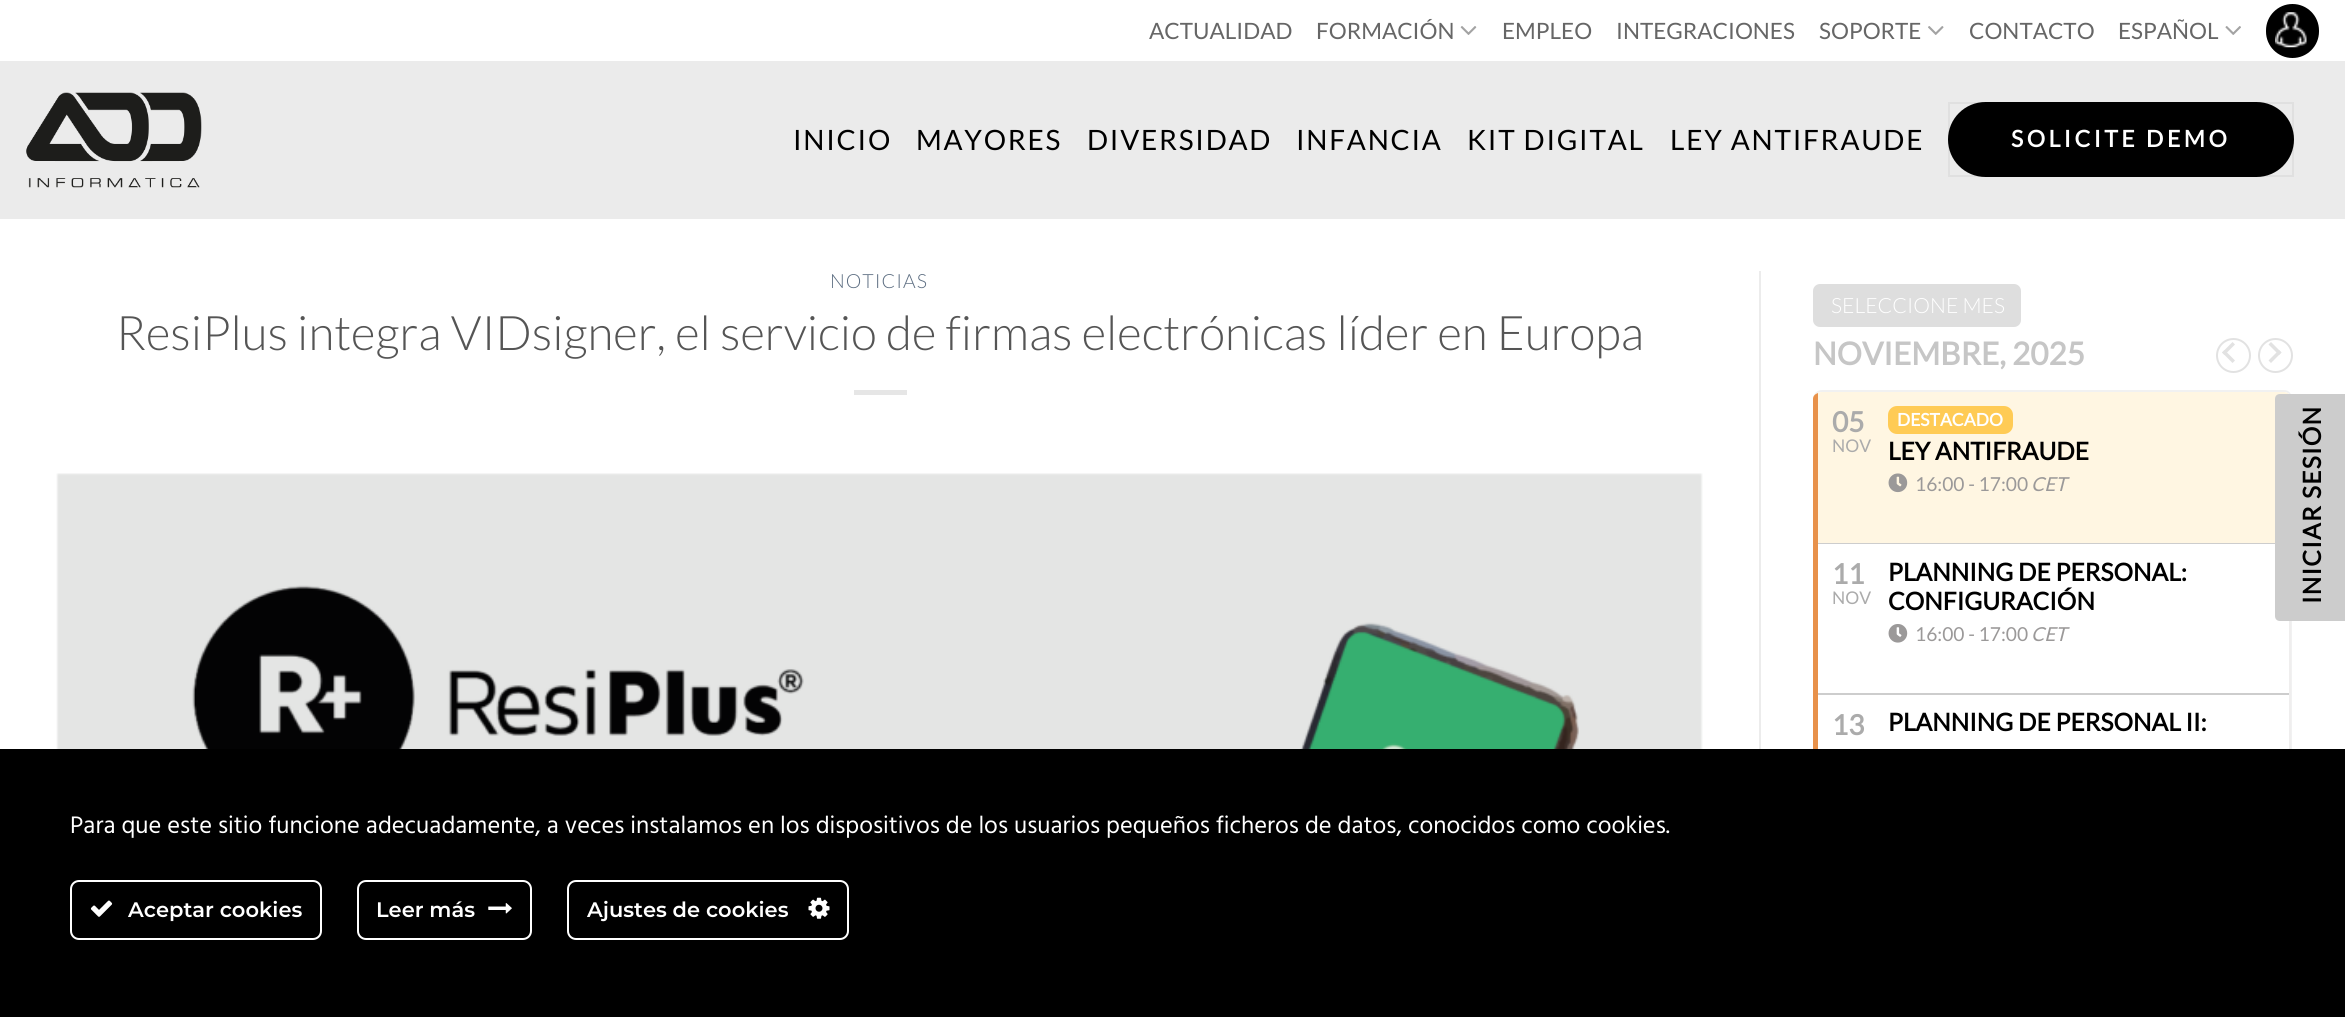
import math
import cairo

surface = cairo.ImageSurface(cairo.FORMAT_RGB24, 2345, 1017)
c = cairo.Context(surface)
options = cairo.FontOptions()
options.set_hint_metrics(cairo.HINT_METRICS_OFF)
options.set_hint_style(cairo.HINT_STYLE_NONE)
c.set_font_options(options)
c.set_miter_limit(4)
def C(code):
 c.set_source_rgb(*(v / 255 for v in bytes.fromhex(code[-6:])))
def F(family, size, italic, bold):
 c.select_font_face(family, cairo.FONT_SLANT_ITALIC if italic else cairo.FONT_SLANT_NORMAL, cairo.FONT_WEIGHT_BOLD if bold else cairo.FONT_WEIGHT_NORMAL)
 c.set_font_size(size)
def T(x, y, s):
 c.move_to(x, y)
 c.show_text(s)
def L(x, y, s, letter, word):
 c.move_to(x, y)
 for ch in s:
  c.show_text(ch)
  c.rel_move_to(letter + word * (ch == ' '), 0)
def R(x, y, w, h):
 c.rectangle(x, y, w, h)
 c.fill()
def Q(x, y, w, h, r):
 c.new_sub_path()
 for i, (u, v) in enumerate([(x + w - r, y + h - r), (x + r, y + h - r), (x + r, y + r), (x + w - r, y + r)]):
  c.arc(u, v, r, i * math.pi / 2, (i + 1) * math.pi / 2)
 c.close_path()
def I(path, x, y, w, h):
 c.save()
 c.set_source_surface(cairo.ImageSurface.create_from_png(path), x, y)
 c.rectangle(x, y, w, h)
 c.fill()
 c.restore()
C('ffffff')
c.paint()
F('Lato',22.5,0,0)
C('666666')
T(1149,39,'ACTUALIDAD')
T(1316,39,'FORMACIÓN')
I('1.png',1460,26,17,9)
T(1502,39,'EMPLEO')
T(1616,39,'INTEGRACIONES')
T(1819,39,'SOPORTE')
I('2.png',1928,26,16,9)
T(1969,39,'CONTACTO')
T(2118,39,'ESPAÑOL')
I('3.png',2225,26,16,9)
C('000000')
Q(2266,4,53,54,26.5)
c.fill()
I('4.png',2275,12,32,36)
C('ebebeb')
R(0,61,2345,158)
I('5.png',26,92,176,96)
F('Lato',28,0,0)
C('000000')
L(793,150,'INICIO',1.75,0)
L(916,150,'MAYORES',1.75,0)
L(1087,150,'DIVERSIDAD',1.75,0)
L(1296,150,'INFANCIA',1.75,0)
L(1467,150,'KIT DIGITAL',1.75,0)
L(1670,150,'LEY ANTIFRAUDE',1.75,0)
Q(1948,102,346,75,37.5)
c.fill()
c.rectangle(1949,103,344,73)
c.set_source_rgba(0,0,0,0.05)
c.stroke()
F('Lato',23,0,1)
C('ffffff')
L(2011,147,'SOLICITE DEMO',3.5,0)
F('Lato Light',19.5,0,0)
C('5c6d81')
L(830,288,'NOTICIAS',1,0)
F('Lato Light',47.6,0,0)
C('555555')
T(116,350,'ResiPlus integra VIDsigner, el servicio de firmas electrónicas líder en Europa')
C('e6e6e6')
R(854,390,53,5)
I('6.png',56,473,1647,276)
C('ececec')
R(1759,271,2,478)
C('dedede')
Q(1813,284,208,43,7)
c.fill()
F('Lato Light',21,0,0)
C('ffffff')
T(1831,313,'SELECCIONE MES')
F('Lato',31.5,0,1)
C('c6c6c6')
T(1813,365,'NOVIEMBRE, 2025')
c.new_path()
c.arc(2233.5,355.5,16.5,0,2 * math.pi)
C('e2e2e2')
c.stroke()
c.new_path()
c.move_to(2235,360.5)
c.line_to(2232.5,363)
c.line_to(2222,352.5)
c.line_to(2224.5,350)
c.close_path()
c.fill()
c.new_path()
c.move_to(2235,344.5)
c.line_to(2224.5,355)
c.line_to(2222,352.5)
c.line_to(2232.5,342)
c.close_path()
c.fill()
c.arc(2275.5,355.5,16.5,0,2 * math.pi)
c.stroke()
c.new_path()
c.move_to(2268.5,344.5)
c.line_to(2271,342)
c.line_to(2281.5,352.5)
c.line_to(2279,355)
c.close_path()
c.fill()
c.new_path()
c.move_to(2268.5,360.5)
c.line_to(2279,350)
c.line_to(2281.5,352.5)
c.line_to(2271,363)
c.close_path()
c.fill()
C('f1f1f1')
c.set_fill_rule(cairo.FILL_RULE_EVEN_ODD)
c.new_path()
c.move_to(1822,390)
c.line_to(2284,390)
c.curve_to(2289,390,2292,394,2292,399)
c.line_to(2292,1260)
c.curve_to(2292,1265,2289,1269,2284,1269)
c.line_to(1822,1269)
c.curve_to(1817,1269,1813,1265,1813,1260)
c.line_to(1813,399)
c.curve_to(1813,394,1817,390,1822,390)
c.close_path()
c.move_to(1822,392)
c.line_to(2284,392)
c.curve_to(2288,392,2291,395,2291,399)
c.line_to(2291,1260)
c.curve_to(2291,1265,2288,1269,2284,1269)
c.line_to(1822,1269)
c.curve_to(1817,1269,1813,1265,1813,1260)
c.line_to(1813,399)
c.curve_to(1813,395,1817,392,1822,392)
c.close_path()
c.fill()
C('fff6e2')
c.set_fill_rule(cairo.FILL_RULE_WINDING)
c.new_path()
c.move_to(1822,392)
c.curve_to(1817,392,1813,395,1813,399)
c.line_to(1813,544)
c.line_to(2289,544)
c.line_to(2289,394)
c.curve_to(2288,393,2286,392,2284,392)
c.close_path()
c.fill()
C('e8914a')
c.new_path()
c.move_to(1813,399)
c.line_to(1813,544)
c.line_to(1818,544)
c.line_to(1818,393)
c.curve_to(1815,394,1813,396,1813,399)
c.close_path()
c.fill()
F('Lato',28,0,1)
C('ababab')
T(1832,432,'05')
F('Lato',17.5,0,0)
T(1832,452,'NOV')
C('ffcb55')
Q(1888,406,125,28,9)
c.fill()
F('Lato',17.5,0,1)
C('ffffff')
T(1897,426,'DESTACADO')
F('Lato',24.5,0,1)
C('000000')
T(1888,460,'LEY ANTIFRAUDE')
I('7.png',1888,473,20,20)
F('Lato',19.25,0,0)
C('9b9999')
T(1915,491,'16:00 - 17:00')
F('Lato',19.25,1,0)
T(2031,491,'CET')
C('cdcdcd')
R(1818,543,457,1)
C('efeeee')
R(2289,621,2,128)
C('e8914a')
R(1813,544,5,205)
F('Lato',28,0,1)
C('ababab')
T(1832,584,'11')
F('Lato',17.5,0,0)
T(1832,604,'NOV')
F('Lato',24.5,0,1)
C('000000')
T(1888,581,'PLANNING DE PERSONAL:')
T(1888,610,'CONFIGURACIÓN')
I('8.png',1888,624,20,19)
F('Lato',19.25,0,0)
C('9b9999')
T(1915,641,'16:00 - 17:00')
F('Lato',19.25,1,0)
T(2031,641,'CET')
C('cdcdcd')
R(1818,693,471,2)
F('Lato',28,0,1)
C('ababab')
T(1832,735,'13')
F('Lato',24.5,0,1)
C('000000')
T(1888,731,'PLANNING DE PERSONAL II:')
C('cccccc')
c.new_path()
c.move_to(2275,616)
c.line_to(2275,399)
c.curve_to(2275,396,2277,394,2280,394)
c.line_to(2345,394)
c.line_to(2345,621)
c.line_to(2280,621)
c.curve_to(2277,621,2275,619,2275,616)
c.close_path()
c.fill()
C('000000')
c.save()
c.translate(2321,604)
c.rotate(-90 * math.pi / 180)
L(0,0,'INICIAR SESIÓN',1.25,0)
c.restore()
R(0,749,2345,268)
F('Hind',24.5,0,0)
C('ffffff')
T(70,833,'Para que este sitio funcione adecuadamente, a veces instalamos en los dispositivos de los usuarios pequeños ficheros de datos, conocidos como cookies.')
Q(71,881,250,58,8)
c.stroke()
I('9.png',90,900,23,17)
F('Montserrat SemiBold',21,0,0)
T(128,917,'Aceptar cookies')
Q(358,881,173,58,8)
c.stroke()
T(376,917,'Leer más')
I('10.png',488,903,24,11)
Q(568,881,280,58,8)
c.stroke()
T(587,917,'Ajustes de cookies')
I('11.png',808,897,22,22)
surface.write_to_png('o.png')
